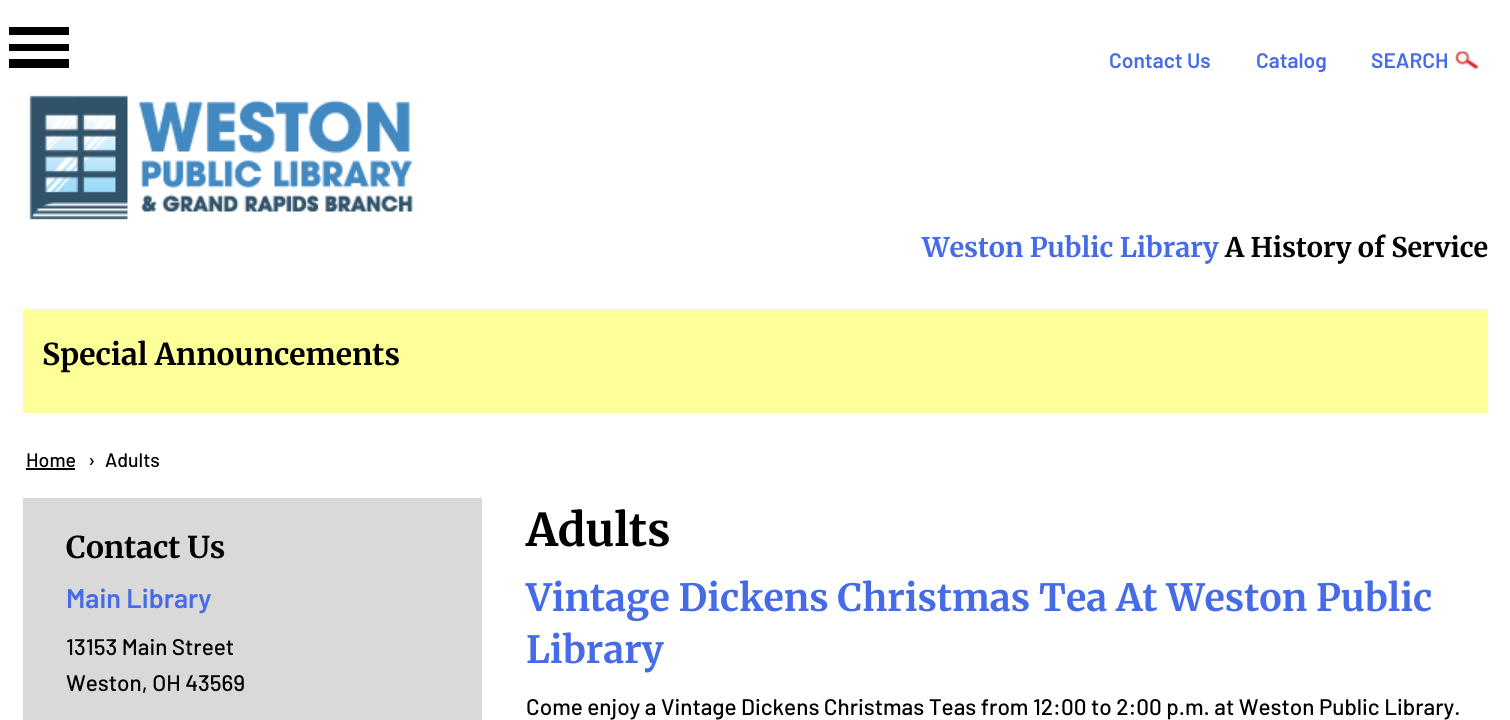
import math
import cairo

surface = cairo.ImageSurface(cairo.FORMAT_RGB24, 1510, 720)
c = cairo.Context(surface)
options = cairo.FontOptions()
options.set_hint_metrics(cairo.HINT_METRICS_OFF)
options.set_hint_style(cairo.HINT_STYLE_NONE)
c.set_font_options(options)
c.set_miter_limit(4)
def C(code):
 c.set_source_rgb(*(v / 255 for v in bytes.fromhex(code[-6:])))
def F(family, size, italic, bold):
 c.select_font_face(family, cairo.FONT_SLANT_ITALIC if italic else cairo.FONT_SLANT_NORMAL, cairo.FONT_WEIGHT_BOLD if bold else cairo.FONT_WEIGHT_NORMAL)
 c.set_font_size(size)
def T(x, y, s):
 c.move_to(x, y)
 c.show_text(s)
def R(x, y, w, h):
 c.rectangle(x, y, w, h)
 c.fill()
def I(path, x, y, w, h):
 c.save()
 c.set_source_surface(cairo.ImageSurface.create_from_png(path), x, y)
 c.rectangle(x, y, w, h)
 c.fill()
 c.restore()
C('ffffff')
c.paint()
C('000000')
R(9,27,60,8)
R(9,44,60,7)
R(9,59,60,9)
F('Barlow SemiBold',21,0,0)
C('466be6')
T(1109,68,'Contact Us')
T(1256,68,'Catalog')
T(1371,68,'SEARCH')
I('1.png',1455,51,24,19)
I('2.png',29,95,384,125)
F('Merriweather Light',27,0,0)
T(922,257,'Weston Public Library')
C('000000')
T(1225,257,'A History of Service')
C('ffff9a')
R(23,309,1465,104)
F('Merriweather Light',30,0,0)
C('000000')
T(42,365,'Special Announcements')
F('Barlow Medium',19.5,0,0)
T(26,467,'Home')
R(26,468,49,2)
T(88,467,'›')
T(105,467,'Adults')
C('d9d9d9')
R(23,498,459,222)
F('Merriweather Light',30,0,0)
C('000000')
T(66,558,'Contact Us')
F('Barlow SemiBold',27,0,0)
C('466be6')
T(66,608,'Main Library')
F('Barlow Medium',22.5,0,0)
C('000000')
T(66,655,'13153 Main Street')
T(66,691,'Weston, OH 43569')
F('Merriweather Light',45,0,0)
T(526,546,'Adults')
F('Merriweather Light',37.5,0,0)
C('466be6')
T(526,611,'Vintage Dickens Christmas Tea At Weston Public')
T(526,663,'Library')
F('Barlow Medium',22.5,0,0)
C('000000')
T(526,715,'Come enjoy a Vintage Dickens Christmas Teas from 12:00 to 2:00 p.m. at Weston Public Library.')
surface.write_to_png('o.png')
